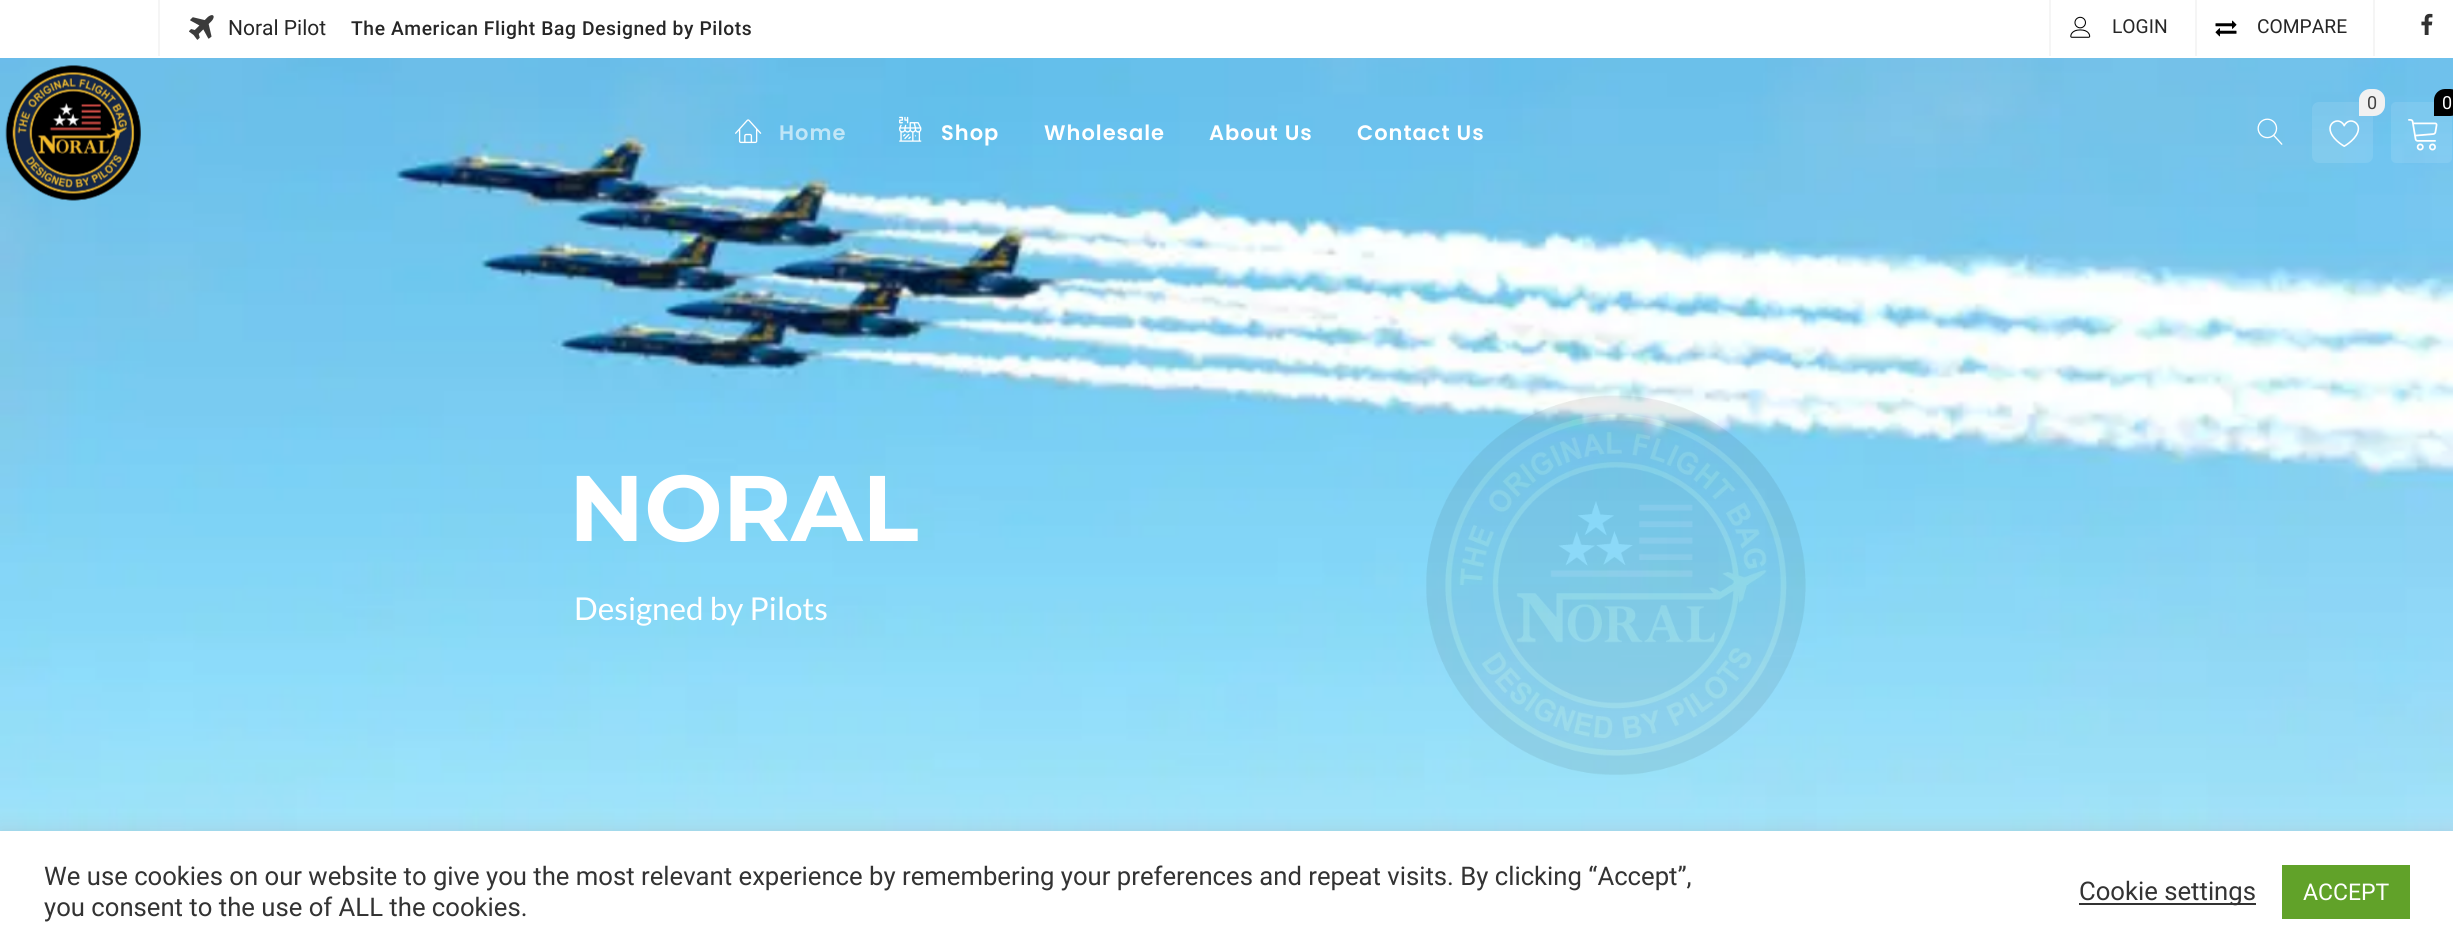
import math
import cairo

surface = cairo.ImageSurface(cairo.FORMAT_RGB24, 2453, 951)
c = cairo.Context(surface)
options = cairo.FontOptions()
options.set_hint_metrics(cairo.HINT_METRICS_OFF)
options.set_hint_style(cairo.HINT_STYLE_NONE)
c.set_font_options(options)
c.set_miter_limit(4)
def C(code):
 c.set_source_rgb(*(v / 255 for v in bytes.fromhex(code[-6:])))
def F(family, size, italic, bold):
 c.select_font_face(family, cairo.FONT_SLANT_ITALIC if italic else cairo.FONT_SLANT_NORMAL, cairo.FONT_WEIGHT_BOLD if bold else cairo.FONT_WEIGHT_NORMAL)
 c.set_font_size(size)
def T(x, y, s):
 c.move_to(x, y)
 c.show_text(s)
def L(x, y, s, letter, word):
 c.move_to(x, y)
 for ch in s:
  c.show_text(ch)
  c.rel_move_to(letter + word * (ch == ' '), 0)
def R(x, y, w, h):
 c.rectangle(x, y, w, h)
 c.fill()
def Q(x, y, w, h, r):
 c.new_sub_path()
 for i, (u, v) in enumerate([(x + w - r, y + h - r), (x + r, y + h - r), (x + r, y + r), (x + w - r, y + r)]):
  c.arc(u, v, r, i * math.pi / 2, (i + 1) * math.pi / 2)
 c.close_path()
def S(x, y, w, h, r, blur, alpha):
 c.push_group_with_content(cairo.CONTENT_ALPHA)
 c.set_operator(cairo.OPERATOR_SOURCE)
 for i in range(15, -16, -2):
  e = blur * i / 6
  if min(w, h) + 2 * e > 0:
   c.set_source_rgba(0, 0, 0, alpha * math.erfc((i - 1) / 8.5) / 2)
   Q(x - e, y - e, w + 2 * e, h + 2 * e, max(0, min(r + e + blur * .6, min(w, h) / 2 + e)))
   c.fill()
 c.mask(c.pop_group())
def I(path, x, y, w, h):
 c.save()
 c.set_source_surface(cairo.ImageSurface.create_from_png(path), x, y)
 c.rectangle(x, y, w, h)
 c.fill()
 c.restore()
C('ffffff')
c.paint()
C('f5f5f5')
R(158,0,2,56)
I('1.png',189,15,25,25)
F('Roboto',21,0,0)
C('262626')
T(228,35,'Noral Pilot')
F('Roboto Medium',19.25,0,0)
L(351,35,'The American Flight Bag Designed by Pilots',.6,0)
C('f5f5f5')
R(2049,0,2,56)
I('2.png',2070,16,21,22)
F('Roboto',19.25,0,0)
C('262626')
T(2112,33,'LOGIN')
C('f5f5f5')
R(2195,0,2,56)
I('3.png',2215,20,22,17)
c.save()
c.rectangle(2258,0,89,56)
c.clip()
C('262626')
T(2257,33,'COMPARE')
c.restore()
R(2373,0,2,56)
I('4.png',2421,13,12,22)
I('11.png',0,58,2453,773)
I('5.png',5,65,136,136)
c.set_source_rgba(1,1,1,0.1)
Q(2312,102,61,61,7)
c.fill()
C('f1f1f1')
c.new_path()
c.move_to(2370,89)
c.line_to(2374,89)
c.curve_to(2380,89,2385,94,2385,100)
c.line_to(2385,105)
c.curve_to(2385,111,2380,116,2374,116)
c.line_to(2359,116)
c.line_to(2359,100)
c.curve_to(2359,94,2364,89,2370,89)
c.close_path()
c.fill()
F('Roboto',18,0,0)
C('424242')
T(2367,109,'0')
I('6.png',2329,120,31,27)
c.set_source_rgba(1,1,1,0.1)
Q(2391,102,61,61,5)
c.fill()
C('000000')
c.new_path()
c.move_to(2445,89)
c.line_to(2450,89)
c.curve_to(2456,89,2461,94,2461,100)
c.line_to(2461,105)
c.curve_to(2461,111,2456,116,2450,116)
c.line_to(2434,116)
c.line_to(2434,100)
c.curve_to(2434,94,2439,89,2445,89)
c.close_path()
c.fill()
C('ffffff')
T(2442,109,'0')
I('7.png',2408,119,30,32)
I('8.png',735,119,27,25)
F('Poppins SemiBold',21,0,0)
C('c1e6f7')
L(779,140,'Home',1,0)
I('9.png',899,116,23,26)
C('ffffff')
L(941,140,'Shop',1,0)
L(1044,140,'Wholesale',1,0)
L(1209,140,'About Us',1,0)
L(1357,140,'Contact Us',1,0)
I('10.png',2257,118,26,27)
F('Montserrat Thin',93,0,0)
T(569,541,'NORAL')
I('12.png',1426,395,380,380)
F('Lato',31.5,0,0)
T(574,620,'Designed by Pilots')
C('acabab')
S(0,830,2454,120,0,9,.3)
C('ffffff')
R(0,831,2453,120)
F('Roboto',25.67,0,0)
C('333333')
T(44,885,'We use cookies on our website to give you the most relevant experience by remembering your preferences and repeat visits. By clicking “Accept”,')
T(44,916,'you consent to the use of ALL the cookies.')
R(2079,903,177,2)
T(2079,900,'Cookie settings')
C('61a229')
R(2282,865,128,54)
F('Roboto',23,0,0)
C('ffffff')
T(2303,900,'ACCEPT')
surface.write_to_png('o.png')
